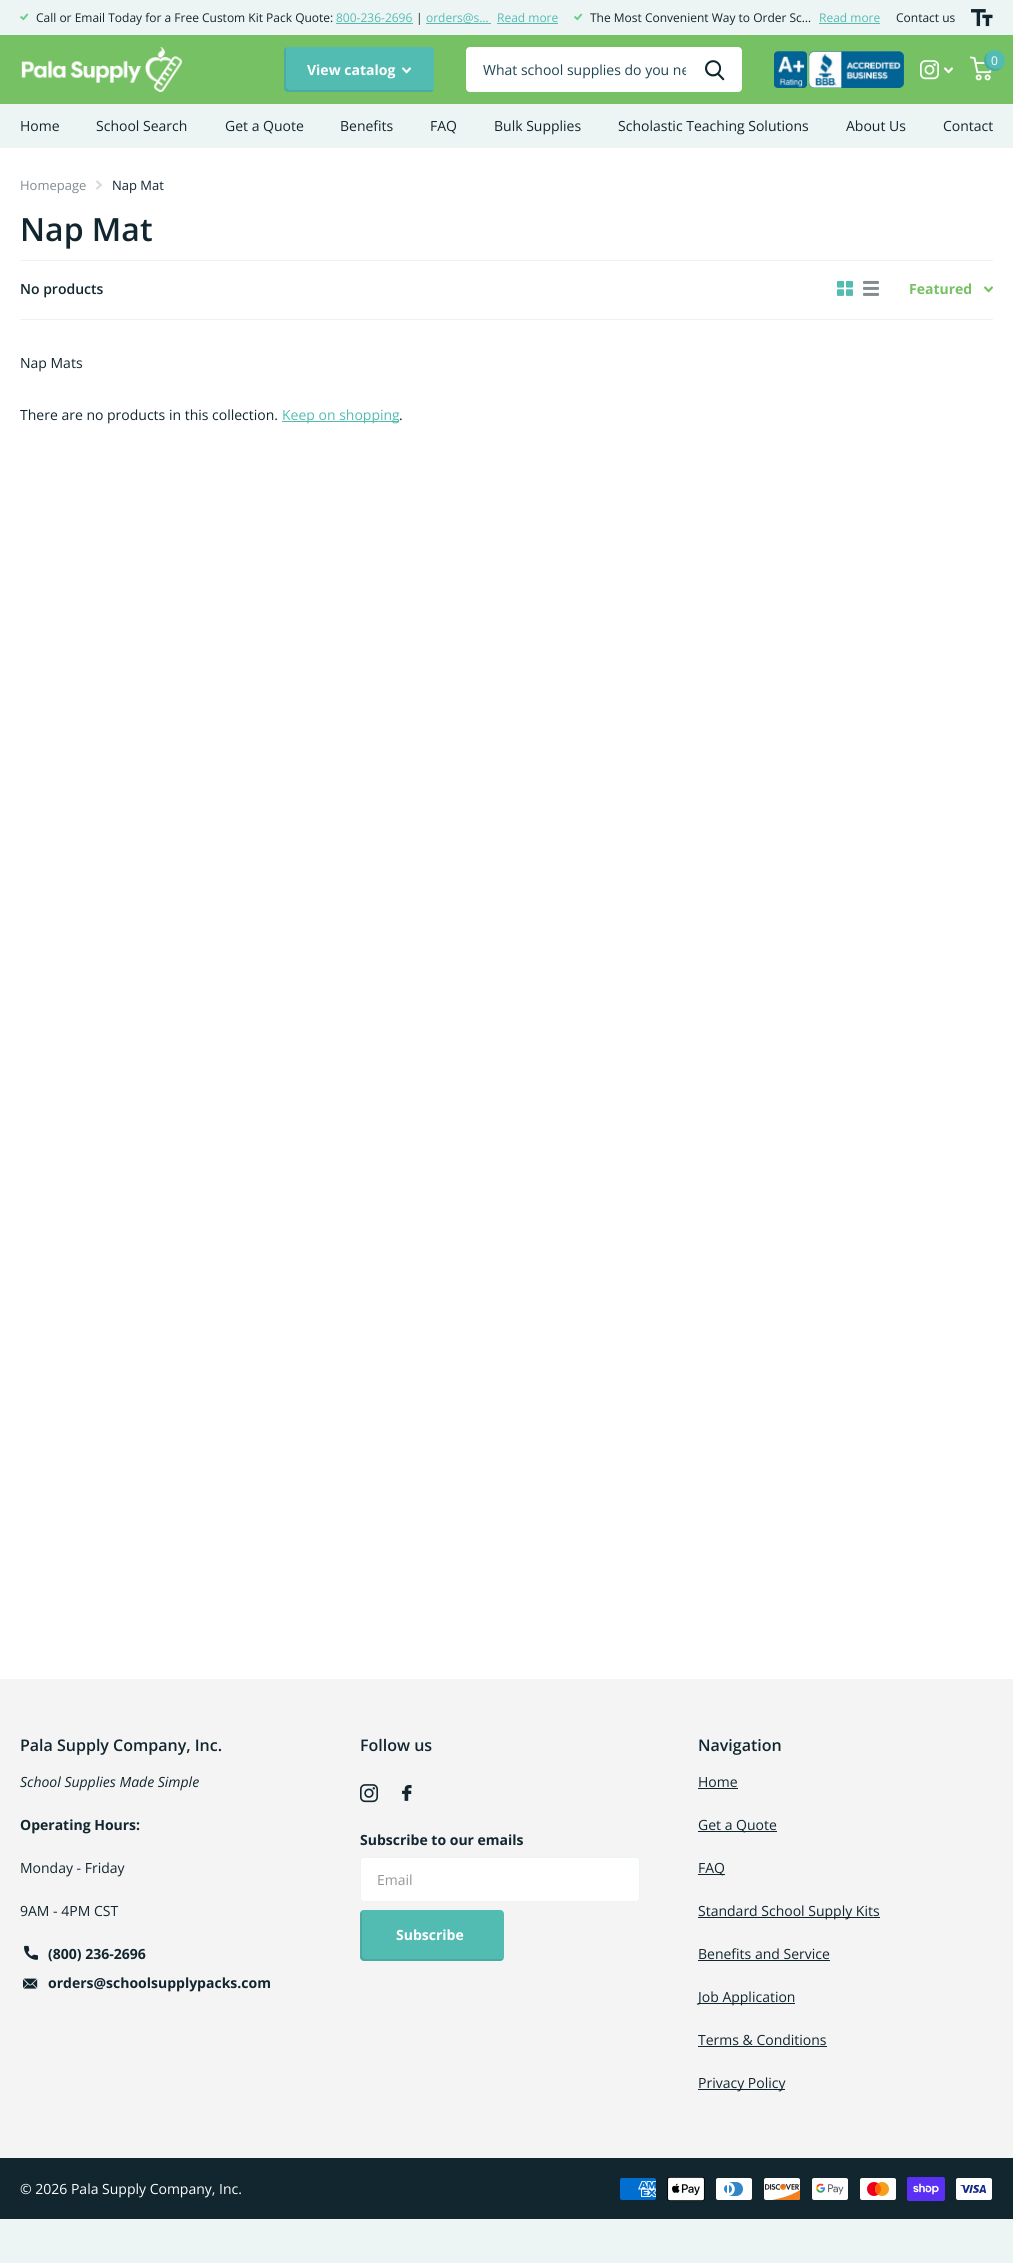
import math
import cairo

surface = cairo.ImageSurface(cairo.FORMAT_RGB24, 1013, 2263)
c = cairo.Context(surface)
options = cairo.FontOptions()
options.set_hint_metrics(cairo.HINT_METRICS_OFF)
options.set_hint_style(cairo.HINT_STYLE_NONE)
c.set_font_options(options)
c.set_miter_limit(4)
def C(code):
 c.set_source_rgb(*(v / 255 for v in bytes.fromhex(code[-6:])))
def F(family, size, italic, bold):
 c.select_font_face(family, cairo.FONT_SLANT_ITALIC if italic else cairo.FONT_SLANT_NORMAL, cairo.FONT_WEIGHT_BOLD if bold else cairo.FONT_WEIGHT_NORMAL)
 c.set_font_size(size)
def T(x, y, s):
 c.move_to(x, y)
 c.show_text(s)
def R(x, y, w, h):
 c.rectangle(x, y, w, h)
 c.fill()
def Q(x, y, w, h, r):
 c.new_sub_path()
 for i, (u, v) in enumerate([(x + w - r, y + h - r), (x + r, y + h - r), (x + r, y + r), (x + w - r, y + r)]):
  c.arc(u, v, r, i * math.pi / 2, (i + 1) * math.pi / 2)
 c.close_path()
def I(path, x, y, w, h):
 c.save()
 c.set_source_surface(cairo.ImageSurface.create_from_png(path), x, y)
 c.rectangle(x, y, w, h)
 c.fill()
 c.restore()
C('edf4f4')
c.paint()
C('ffffff')
R(0,148,1013,1531)
I('1.png',20,13,9,8)
F('Open Sans',12,0,0)
C('12262f')
T(36,22,'Call or Email Today for a Free Custom Kit Pack Quote:')
C('53bcb2')
T(336,22,'800-236-2696')
R(336,23,77,1)
C('12262f')
T(416,22,'|')
C('53bcb2')
R(426,23,65,1)
T(426,22,'orders@s…')
T(497,22,'Read more')
R(497,23,61,1)
I('1.png',574,13,9,8)
C('12262f')
T(590,22,'The Most Convenient Way to Order Sc…')
C('53bcb2')
T(819,22,'Read more')
R(819,23,61,1)
C('12262f')
T(896,22,'Contact us')
I('2.png',971,9,22,18)
C('76c163')
R(0,35,1013,69)
I('3.png',774,51,130,37)
I('4.png',920,60,19,20)
I('5.png',944,67,9,7)
I('6.png',970,56,22,25)
C('53bcb2')
c.arc(994.5,60.5,10.5,0,2 * math.pi)
c.fill()
c.set_source_rgba(0,0,0,0.1)
c.new_path()
c.move_to(1003,66.5)
c.curve_to(1001.5,68,999,69,996,69)
c.curve_to(987,69,984,58.5,988,52.5)
c.curve_to(983,56,982.5,63.5,987,68)
c.curve_to(991.5,72.5,999.5,72,1003,66.5)
c.close_path()
c.fill()
C('ffffff')
T(991,65,'0')
I('7.png',21,47,161,45)
C('53bcb2')
Q(284,47,150,45,4)
c.fill()
c.set_source_rgba(0,0,0,0.1)
c.new_path()
c.move_to(286,47)
c.curve_to(285,48,284,49,284,51)
c.line_to(284,88)
c.curve_to(284,90,286,92,288,92)
c.line_to(430,92)
c.curve_to(432,92,433,91,434,90)
c.line_to(432,90)
c.line_to(290,90)
c.curve_to(288,90,286,88,286,86)
c.line_to(286,49)
c.close_path()
c.fill()
F('Open Sans',14,0,1)
C('ffffff')
T(307,75,'View catalog')
I('8.png',402,67,9,7)
Q(466,47,276,45,4)
c.fill()
c.save()
c.rectangle(483,60,203,19)
c.clip()
F('Open Sans',14,0,0)
C('204454')
T(483,75,'What school supplies do you ne')
c.restore()
I('9.png',705,60,20,21)
F('Open Sans',14,0,0)
C('12262f')
T(20,131,'Home')
T(96,131,'School Search')
T(225,131,'Get a Quote')
T(340,131,'Benefits')
T(430,131,'FAQ')
T(494,131,'Bulk Supplies')
T(618,131,'Scholastic Teaching Solutions')
T(846,131,'About Us')
T(943,131,'Contact')
F('Open Sans',13,0,0)
C('818c91')
T(20,190,'Homepage')
I('10.png',96,180,6,10)
C('12262f')
T(112,190,'Nap Mat')
F('Open Sans SemiBold',32,0,0)
T(20,241,'Nap Mat')
C('edf4f4')
R(20,260,973,1)
R(20,319,973,1)
F('Open Sans SemiBold',14,0,0)
C('12262f')
T(20,294,'No products')
I('11.png',837,280,16,16)
I('12.png',863,280,16,16)
F('Open Sans',14,0,1)
C('76c163')
T(909,294,'Featured')
I('13.png',984,286,9,7)
F('Open Sans',14,0,0)
C('12262f')
T(20,368,'Nap Mats')
T(20,420,'There are no products in this collection.')
C('53bcb2')
R(282,421,117,1)
T(282,420,'Keep on shopping')
C('12262f')
T(399,420,'.')
C('f4f4f4')
R(0,1679,1013,479)
F('Open Sans SemiBold',16,0,0)
C('12262f')
T(20,1751,'Pala Supply Company, Inc.')
F('Open Sans',14,1,0)
T(20,1787,'School Supplies Made Simple')
F('Open Sans',14,0,1)
T(20,1830,'Operating Hours:')
F('Open Sans',14,0,0)
T(20,1873,'Monday - Friday')
T(20,1916,'9AM - 4PM CST')
I('14.png',24,1945,14,15)
F('Open Sans',14,0,1)
T(48,1959,'(800) 236-2696')
I('15.png',23,1978,15,11)
T(48,1988,'orders@schoolsupplypacks.com')
F('Open Sans SemiBold',16,0,0)
T(360,1751,'Follow us')
I('16.png',360,1784,18,19)
I('17.png',402,1785,10,16)
F('Open Sans',14,0,1)
T(360,1845,'Subscribe to our emails')
C('ffffff')
Q(360.5,1857.5,279,44,3.5)
c.fill_preserve()
C('edf4f4')
c.set_line_width(1)
c.stroke()
F('Open Sans',14,0,0)
C('959595')
T(377,1885,'Email')
C('53bcb2')
Q(360,1910,144,51,4)
c.fill()
c.set_source_rgba(0,0,0,0.1)
c.new_path()
c.move_to(362,1910)
c.curve_to(361,1911,360,1912,360,1914)
c.line_to(360,1957)
c.curve_to(360,1959,362,1961,364,1961)
c.line_to(500,1961)
c.curve_to(502,1961,503,1960,504,1959)
c.line_to(502,1959)
c.line_to(366,1959)
c.curve_to(364,1959,362,1957,362,1955)
c.line_to(362,1912)
c.close_path()
c.fill()
F('Open Sans',14,0,1)
C('ffffff')
T(396,1940,'Subscribe')
F('Open Sans SemiBold',16,0,0)
C('12262f')
T(698,1751,'Navigation')
F('Open Sans',14,0,0)
T(698,1787,'Home')
R(698,1788,40,1)
R(698,1831,79,1)
T(698,1830,'Get a Quote')
R(698,1874,27,1)
T(698,1873,'FAQ')
R(698,1917,182,1)
T(698,1916,'Standard School Supply Kits')
T(698,1959,'Benefits and Service')
R(698,1960,132,1)
R(698,2003,97,1)
T(698,2002,'Job Application')
T(698,2045,'Terms & Conditions')
R(698,2046,129,1)
R(698,2089,87,1)
T(698,2088,'Privacy Policy')
R(0,2158,1013,61)
C('ffffff')
T(20,2194,'© 2026 Pala Supply Company, Inc.')
I('18.png',620,2178,36,22)
I('19.png',667,2177,38,24)
I('20.png',716,2178,36,22)
I('21.png',764,2178,36,22)
I('22.png',812,2178,36,22)
I('23.png',860,2178,36,22)
I('24.png',907,2177,38,24)
I('25.png',956,2178,36,22)
surface.write_to_png('o.png')
